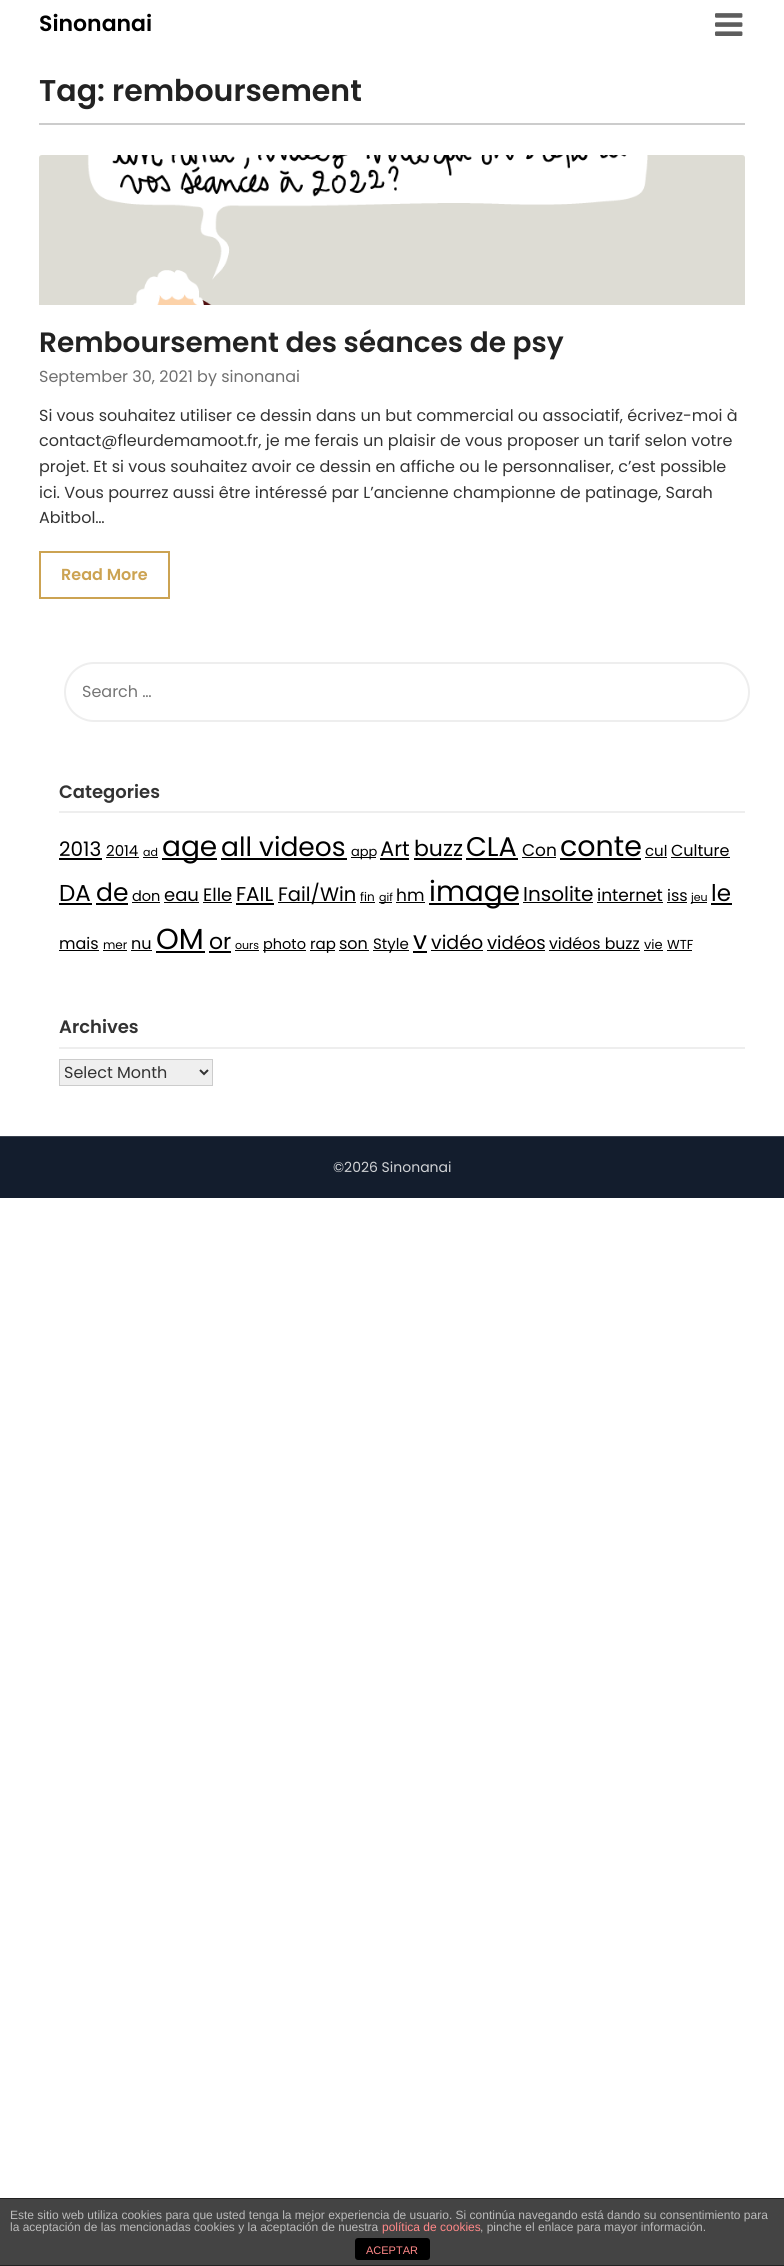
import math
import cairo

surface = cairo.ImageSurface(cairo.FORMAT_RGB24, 784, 2266)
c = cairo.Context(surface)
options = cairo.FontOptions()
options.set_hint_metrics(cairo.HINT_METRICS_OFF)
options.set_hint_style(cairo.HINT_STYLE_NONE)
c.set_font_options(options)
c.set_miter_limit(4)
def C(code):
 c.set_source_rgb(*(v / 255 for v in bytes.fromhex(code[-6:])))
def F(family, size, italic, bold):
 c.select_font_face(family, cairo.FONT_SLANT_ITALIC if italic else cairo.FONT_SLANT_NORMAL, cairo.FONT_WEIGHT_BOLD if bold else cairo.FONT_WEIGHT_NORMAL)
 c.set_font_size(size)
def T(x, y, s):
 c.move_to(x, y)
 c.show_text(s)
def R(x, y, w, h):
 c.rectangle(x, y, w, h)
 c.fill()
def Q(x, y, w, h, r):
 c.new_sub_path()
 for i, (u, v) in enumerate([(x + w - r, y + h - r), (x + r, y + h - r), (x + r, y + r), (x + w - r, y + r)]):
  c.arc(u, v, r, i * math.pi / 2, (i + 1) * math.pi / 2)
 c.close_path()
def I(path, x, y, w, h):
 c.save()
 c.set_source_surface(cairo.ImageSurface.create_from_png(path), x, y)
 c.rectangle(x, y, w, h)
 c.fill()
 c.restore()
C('ffffff')
c.paint()
F('Poppins SemiBold',22,0,0)
C('000000')
T(39,31,'Sinonanai')
I('1.png',715,13,28,23)
C('cccccc')
R(39,123,706,2)
F('Poppins SemiBold',30,0,0)
C('222222')
T(39,101,'Tag: remboursement')
I('2.png',39,155,706,150)
F('Poppins SemiBold',28,0,0)
T(39,352,'Remboursement des séances de psy')
F('Poppins',16,0,0)
C('6f6f6f')
T(39,382,'September 30, 2021 by sinonanai')
C('333333')
T(39,421,'Si vous souhaitez utiliser ce dessin dans un but commercial ou associatif, écrivez-moi à')
T(39,446,'contact@fleurdemamoot.fr, je me ferais un plaisir de vous proposer un tarif selon votre')
T(39,472,'projet. Et si vous souhaitez avoir ce dessin en affiche ou le personnaliser, c’est possible')
T(39,498,'ici. Vous pourrez aussi être intéressé par L’ancienne championne de patinage, Sarah')
T(39,523,'Abitbol…')
c.rectangle(40,552,129,46)
C('cca352')
c.stroke()
F('Poppins SemiBold',16,0,0)
T(61,580,'Read More')
Q(65,663,684,58,29)
C('eeeeee')
c.stroke()
F('Poppins',16,0,0)
C('757575')
T(82,697,'Search …')
C('eeeeee')
R(59,811,686,2)
F('Poppins SemiBold',18,0,0)
C('333333')
T(59,798,'Categories')
F('Poppins',20,0,0)
C('000000')
T(59,856,'2013')
R(59,858,43,2)
F('Poppins',15,0,0)
T(106,856,'2014')
R(106,857,33,1)
F('Poppins',11,0,0)
T(143,856,'ad')
R(143,857,15,1)
R(162,858,55,2)
F('Poppins',28,0,0)
T(162,856,'age')
F('Poppins',26.5,0,0)
T(221,856,'all videos')
R(221,858,126,2)
R(351,857,25,1)
F('Poppins',13,0,0)
T(351,856,'app')
F('Poppins',21,0,0)
T(380,856,'Art')
R(380,858,29,2)
F('Poppins',22,0,0)
T(414,856,'buzz')
R(414,858,48,2)
F('Poppins',27,0,0)
T(466,856,'CLA')
R(466,858,52,2)
F('Poppins',17,0,0)
T(522,856,'Con')
R(522,857,34,1)
F('Poppins',28.5,0,0)
T(560,856,'conte')
R(560,858,81,2)
F('Poppins',15,0,0)
T(645,856,'cul')
R(645,857,22,1)
F('Poppins',16,0,0)
T(671,856,'Culture')
R(671,857,59,1)
F('Poppins',23,0,0)
T(59,901,'DA')
R(59,903,33,2)
F('Poppins',25,0,0)
T(96,901,'de')
R(96,903,32,2)
F('Poppins',14.5,0,0)
T(132,901,'don')
R(132,902,28,1)
F('Poppins',18,0,0)
T(164,901,'eau')
R(164,902,35,1)
T(203,901,'Elle')
R(203,902,29,1)
F('Poppins',20,0,0)
T(236,901,'FAIL')
R(236,903,38,2)
R(278,902,78,1)
F('Poppins',19.5,0,0)
T(278,901,'Fail/Win')
F('Poppins',12,0,0)
T(360,901,'fin')
R(360,902,15,1)
R(379,902,13,1)
F('Poppins',11,0,0)
T(379,901,'gif')
F('Poppins',17,0,0)
T(396,901,'hm')
R(396,902,29,1)
R(429,903,90,2)
F('Poppins',28,0,0)
T(429,901,'image')
F('Poppins',20,0,0)
T(523,901,'Insolite')
R(523,902,70,1)
F('Poppins',17,0,0)
T(597,901,'internet')
R(597,902,66,1)
F('Poppins',16,0,0)
T(667,901,'iss')
R(667,902,20,1)
R(691,902,16,1)
F('Poppins',11,0,0)
T(691,901,'jeu')
F('Poppins',23,0,0)
T(711,901,'le')
R(711,903,21,2)
F('Poppins',16,0,0)
T(59,949,'mais')
R(59,950,40,1)
F('Poppins',12,0,0)
T(103,949,'mer')
R(103,950,24,1)
F('Poppins',16,0,0)
T(131,949,'nu')
R(131,950,21,1)
F('Poppins',29,0,0)
T(156,949,'OM')
R(156,951,49,2)
F('Poppins',22,0,0)
T(209,949,'or')
R(209,951,22,2)
F('Poppins',11,0,0)
T(235,949,'ours')
R(235,950,24,1)
R(263,950,43,1)
F('Poppins',14.5,0,0)
T(263,949,'photo')
R(310,950,25,1)
F('Poppins',15,0,0)
T(310,949,'rap')
F('Poppins',16,0,0)
T(339,949,'son')
R(339,950,30,1)
R(373,950,36,1)
F('Poppins',15,0,0)
T(373,949,'Style')
F('Poppins',25,0,0)
T(413,949,'v')
R(413,951,14,2)
F('Poppins',19,0,0)
T(431,949,'vidéo')
R(431,950,52,1)
F('Poppins',18,0,0)
T(487,949,'vidéos')
R(487,950,58,1)
F('Poppins',15.75,0,0)
T(549,949,'vidéos buzz')
R(549,950,91,1)
F('Poppins',13,0,0)
T(644,949,'vie')
R(644,950,19,1)
T(667,949,'WTF')
R(667,950,25,1)
C('eeeeee')
R(59,1047,686,2)
F('Poppins SemiBold',18,0,0)
C('333333')
T(59,1033,'Archives')
C('efefef')
c.rectangle(59.5,1059.5,153,26)
c.fill_preserve()
C('cccccc')
c.set_line_width(1)
c.stroke()
c.new_path()
c.move_to(200,1070)
c.line_to(204,1074)
c.line_to(208,1070)
C('333333')
c.set_line_width(2)
c.stroke()
F('Poppins',16,0,0)
T(64,1078,'Select Month')
C('131d2d')
R(0,1137,784,61)
C('39414f')
R(0,1136,784,1)
F('Poppins',14,0,0)
C('d0d2d5')
T(333,1172,'©2026 Sinonanai')
C('444444')
R(0,2199,784,66)
C('222222')
R(0,2198,784,1)
R(0,2265,784,1)
F('Liberation Sans',12,0,0)
C('bbbbbb')
T(10,2219,'Este sitio web utiliza cookies para que usted tenga la mejor experiencia de usuario. Si continúa navegando está dando su consentimiento para')
T(10,2231,'la aceptación de las mencionadas cookies y la aceptación de nuestra')
C('ff8888')
T(382,2231,'política de cookies')
C('bbbbbb')
T(480,2231,', pinche el enlace para mayor información.')
C('000000')
Q(355,2238,75,22,3)
c.fill()
F('Liberation Sans',11,0,0)
C('ff8888')
T(366,2254,'ACEPTAR')
surface.write_to_png('o.png')
